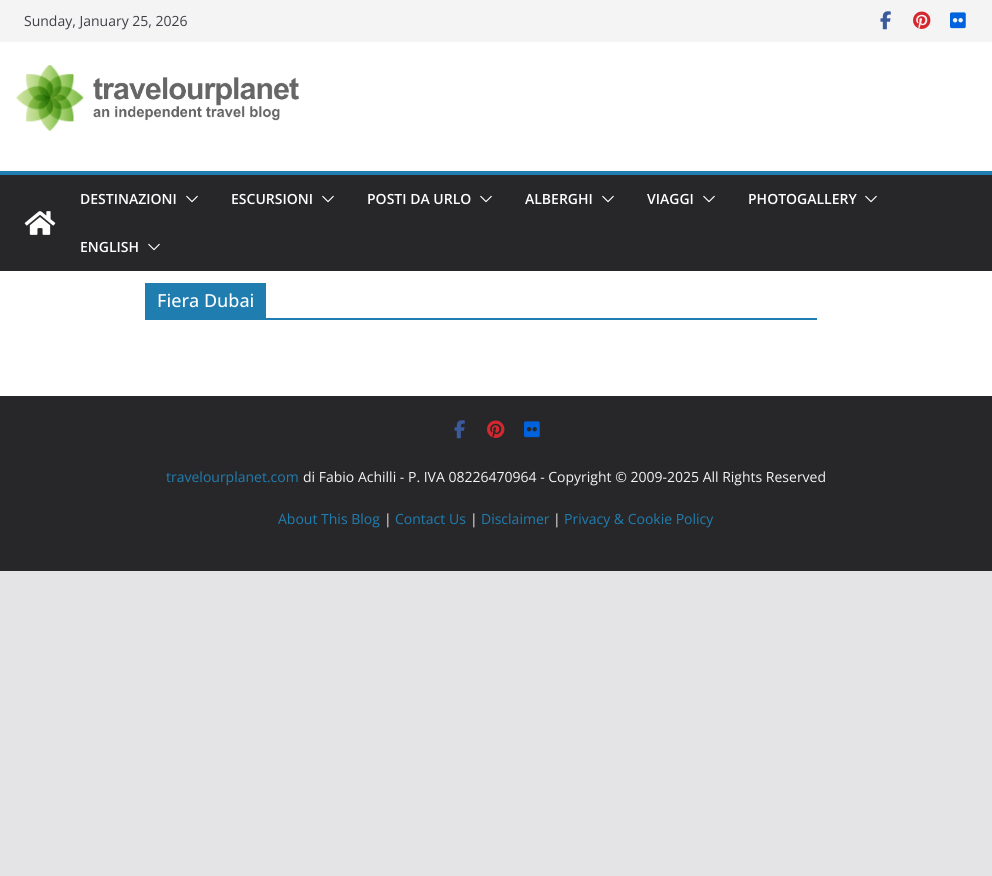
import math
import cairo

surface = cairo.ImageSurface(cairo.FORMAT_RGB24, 992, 876)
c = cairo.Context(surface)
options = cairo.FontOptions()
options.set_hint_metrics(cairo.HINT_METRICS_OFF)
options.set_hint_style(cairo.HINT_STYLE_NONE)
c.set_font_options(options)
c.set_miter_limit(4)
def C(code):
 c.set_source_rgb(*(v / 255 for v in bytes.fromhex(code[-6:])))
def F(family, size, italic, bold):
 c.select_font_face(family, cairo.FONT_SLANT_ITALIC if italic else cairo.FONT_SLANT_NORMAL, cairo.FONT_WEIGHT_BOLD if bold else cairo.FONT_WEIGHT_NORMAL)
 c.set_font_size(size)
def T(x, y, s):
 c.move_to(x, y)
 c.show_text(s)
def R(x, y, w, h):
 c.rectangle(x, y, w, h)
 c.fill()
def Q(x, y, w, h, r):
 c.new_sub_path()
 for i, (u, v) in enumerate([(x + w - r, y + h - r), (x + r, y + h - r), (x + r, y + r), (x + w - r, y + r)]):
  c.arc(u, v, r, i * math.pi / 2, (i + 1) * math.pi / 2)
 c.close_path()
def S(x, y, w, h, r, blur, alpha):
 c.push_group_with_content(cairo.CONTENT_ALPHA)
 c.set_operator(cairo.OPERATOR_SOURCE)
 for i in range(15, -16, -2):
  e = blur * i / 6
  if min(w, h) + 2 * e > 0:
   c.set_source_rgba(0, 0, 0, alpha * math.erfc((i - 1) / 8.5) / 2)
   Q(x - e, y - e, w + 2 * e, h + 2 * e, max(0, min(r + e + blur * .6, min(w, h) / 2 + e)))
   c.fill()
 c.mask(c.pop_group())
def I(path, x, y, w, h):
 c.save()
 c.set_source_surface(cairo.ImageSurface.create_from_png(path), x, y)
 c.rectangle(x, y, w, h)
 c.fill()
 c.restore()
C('e4e4e7')
c.paint()
C('ffffff')
R(0,41,992,130)
C('000000')
S(0,0,992,41,0,1,.1)
C('f4f4f5')
R(0,0,992,41)
F('Open Sans',14,0,0)
C('3f3f46')
T(24,26,'Sunday, January 25, 2026')
I('1.png',880,11,11,19)
I('2.png',913,11,18,18)
I('3.png',950,12,16,17)
I('4.png',16,65,283,66)
C('27272a')
R(0,175,992,96)
C('207daf')
R(0,171,992,4)
I('5.png',24,211,32,24)
F('Open Sans SemiBold',14,0,0)
C('ffffff')
T(80,204,'DESTINAZIONI')
I('6.png',186,195,12,8)
T(231,204,'ESCURSIONI')
I('6.png',322,195,12,8)
T(367,204,'POSTI DA URLO')
I('6.png',480,195,12,8)
T(525,204,'ALBERGHI')
I('6.png',602,195,12,8)
T(647,204,'VIAGGI')
I('6.png',703,195,12,8)
T(748,204,'PHOTOGALLERY')
I('6.png',865,195,12,8)
T(80,252,'ENGLISH')
I('6.png',148,243,12,8)
R(0,271,992,125)
C('207daf')
R(145,318,672,2)
R(145,283,121,35)
F('Open Sans Medium',18,0,0)
C('ffffff')
T(157,307,'Fiera Dubai')
C('27272a')
R(0,396,992,175)
I('7.png',454,420,11,19)
I('8.png',487,420,18,18)
I('9.png',524,421,16,17)
F('Open Sans',14,0,0)
C('207daf')
T(166,482,'travelourplanet.com')
C('f4f4f5')
T(303,482,'di Fabio Achilli - P. IVA 08226470964 - Copyright © 2009-2025 All Rights Reserved')
C('207daf')
T(278,524,'About This Blog')
C('f4f4f5')
T(384,524,'|')
C('207daf')
T(395,524,'Contact Us')
C('f4f4f5')
T(470,524,'|')
C('207daf')
T(481,524,'Disclaimer')
C('f4f4f5')
T(553,524,'|')
C('207daf')
T(564,524,'Privacy & Cookie Policy')
surface.write_to_png('o.png')
